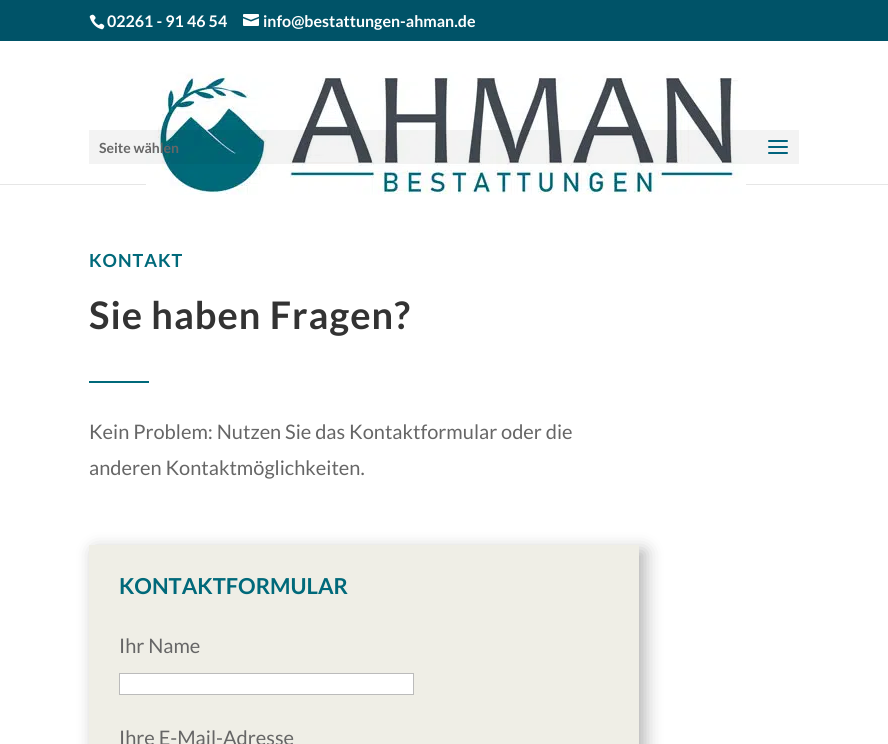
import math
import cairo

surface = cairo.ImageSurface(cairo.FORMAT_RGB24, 888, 744)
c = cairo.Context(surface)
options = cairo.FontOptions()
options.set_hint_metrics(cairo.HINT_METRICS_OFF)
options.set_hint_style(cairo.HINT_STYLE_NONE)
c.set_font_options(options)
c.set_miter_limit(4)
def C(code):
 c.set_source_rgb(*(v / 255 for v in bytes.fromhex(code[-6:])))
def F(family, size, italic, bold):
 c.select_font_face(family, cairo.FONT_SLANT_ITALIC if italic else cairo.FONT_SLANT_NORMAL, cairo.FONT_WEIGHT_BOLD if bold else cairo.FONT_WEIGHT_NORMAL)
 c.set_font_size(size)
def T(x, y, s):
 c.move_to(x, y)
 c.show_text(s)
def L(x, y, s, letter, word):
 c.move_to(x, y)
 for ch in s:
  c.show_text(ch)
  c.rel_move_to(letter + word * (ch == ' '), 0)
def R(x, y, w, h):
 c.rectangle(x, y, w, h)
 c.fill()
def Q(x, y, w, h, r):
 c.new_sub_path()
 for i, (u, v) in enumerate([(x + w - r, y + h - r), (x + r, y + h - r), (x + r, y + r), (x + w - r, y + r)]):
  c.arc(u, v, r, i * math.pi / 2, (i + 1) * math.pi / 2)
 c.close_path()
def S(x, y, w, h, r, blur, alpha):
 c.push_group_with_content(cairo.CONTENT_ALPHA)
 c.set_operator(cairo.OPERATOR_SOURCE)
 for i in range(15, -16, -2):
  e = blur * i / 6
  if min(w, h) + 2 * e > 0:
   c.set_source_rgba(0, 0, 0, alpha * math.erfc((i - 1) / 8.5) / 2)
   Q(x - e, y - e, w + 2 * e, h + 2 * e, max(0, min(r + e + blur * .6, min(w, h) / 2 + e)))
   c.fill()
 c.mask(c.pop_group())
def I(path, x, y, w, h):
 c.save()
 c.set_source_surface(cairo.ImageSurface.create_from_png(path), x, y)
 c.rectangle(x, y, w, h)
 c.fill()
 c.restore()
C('ffffff')
c.paint()
C('005368')
R(0,0,888,41)
I('1.png',89,14,16,16)
F('Lato',16,0,1)
C('ffffff')
T(107,27,'02261 - 91 46 54')
I('2.png',243,14,16,12)
T(263,27,'info@bestattungen-ahman.de')
C('e6e6e6')
R(0,184,888,1)
I('4.png',146,72,600,123)
c.set_source_rgba(0,0,0,0.05)
R(89,130,710,34)
F('Lato',14,0,1)
C('666666')
T(99,153,'Seite wählen')
I('3.png',768,140,20,14)
F('Lato',18,0,1)
C('00697a')
L(89,267,'KONTAKT',1,0)
F('Lato',38,0,1)
C('333333')
L(89,329,'Sie haben Fragen?',1,0)
C('00697a')
R(89,381,60,2)
F('Lato',20,0,0)
C('666666')
T(89,439,'Kein Problem: Nutzen Sie das Kontaktformular oder die')
T(89,475,'anderen Kontaktmöglichkeiten.')
C('000000')
S(95,551,550,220,0,9,.3)
C('efeee6')
R(89,545,550,199)
F('Lato',22,0,1)
C('00697a')
T(119,594,'KONTAKTFORMULAR')
F('Lato',20,0,0)
C('666666')
T(119,653,'Ihr Name')
C('ffffff')
c.rectangle(119.5,673.5,294,21)
c.fill_preserve()
C('bbbbbb')
c.set_line_width(1)
c.stroke()
C('666666')
T(119,745,'Ihre E-Mail-Adresse')
surface.write_to_png('o.png')
